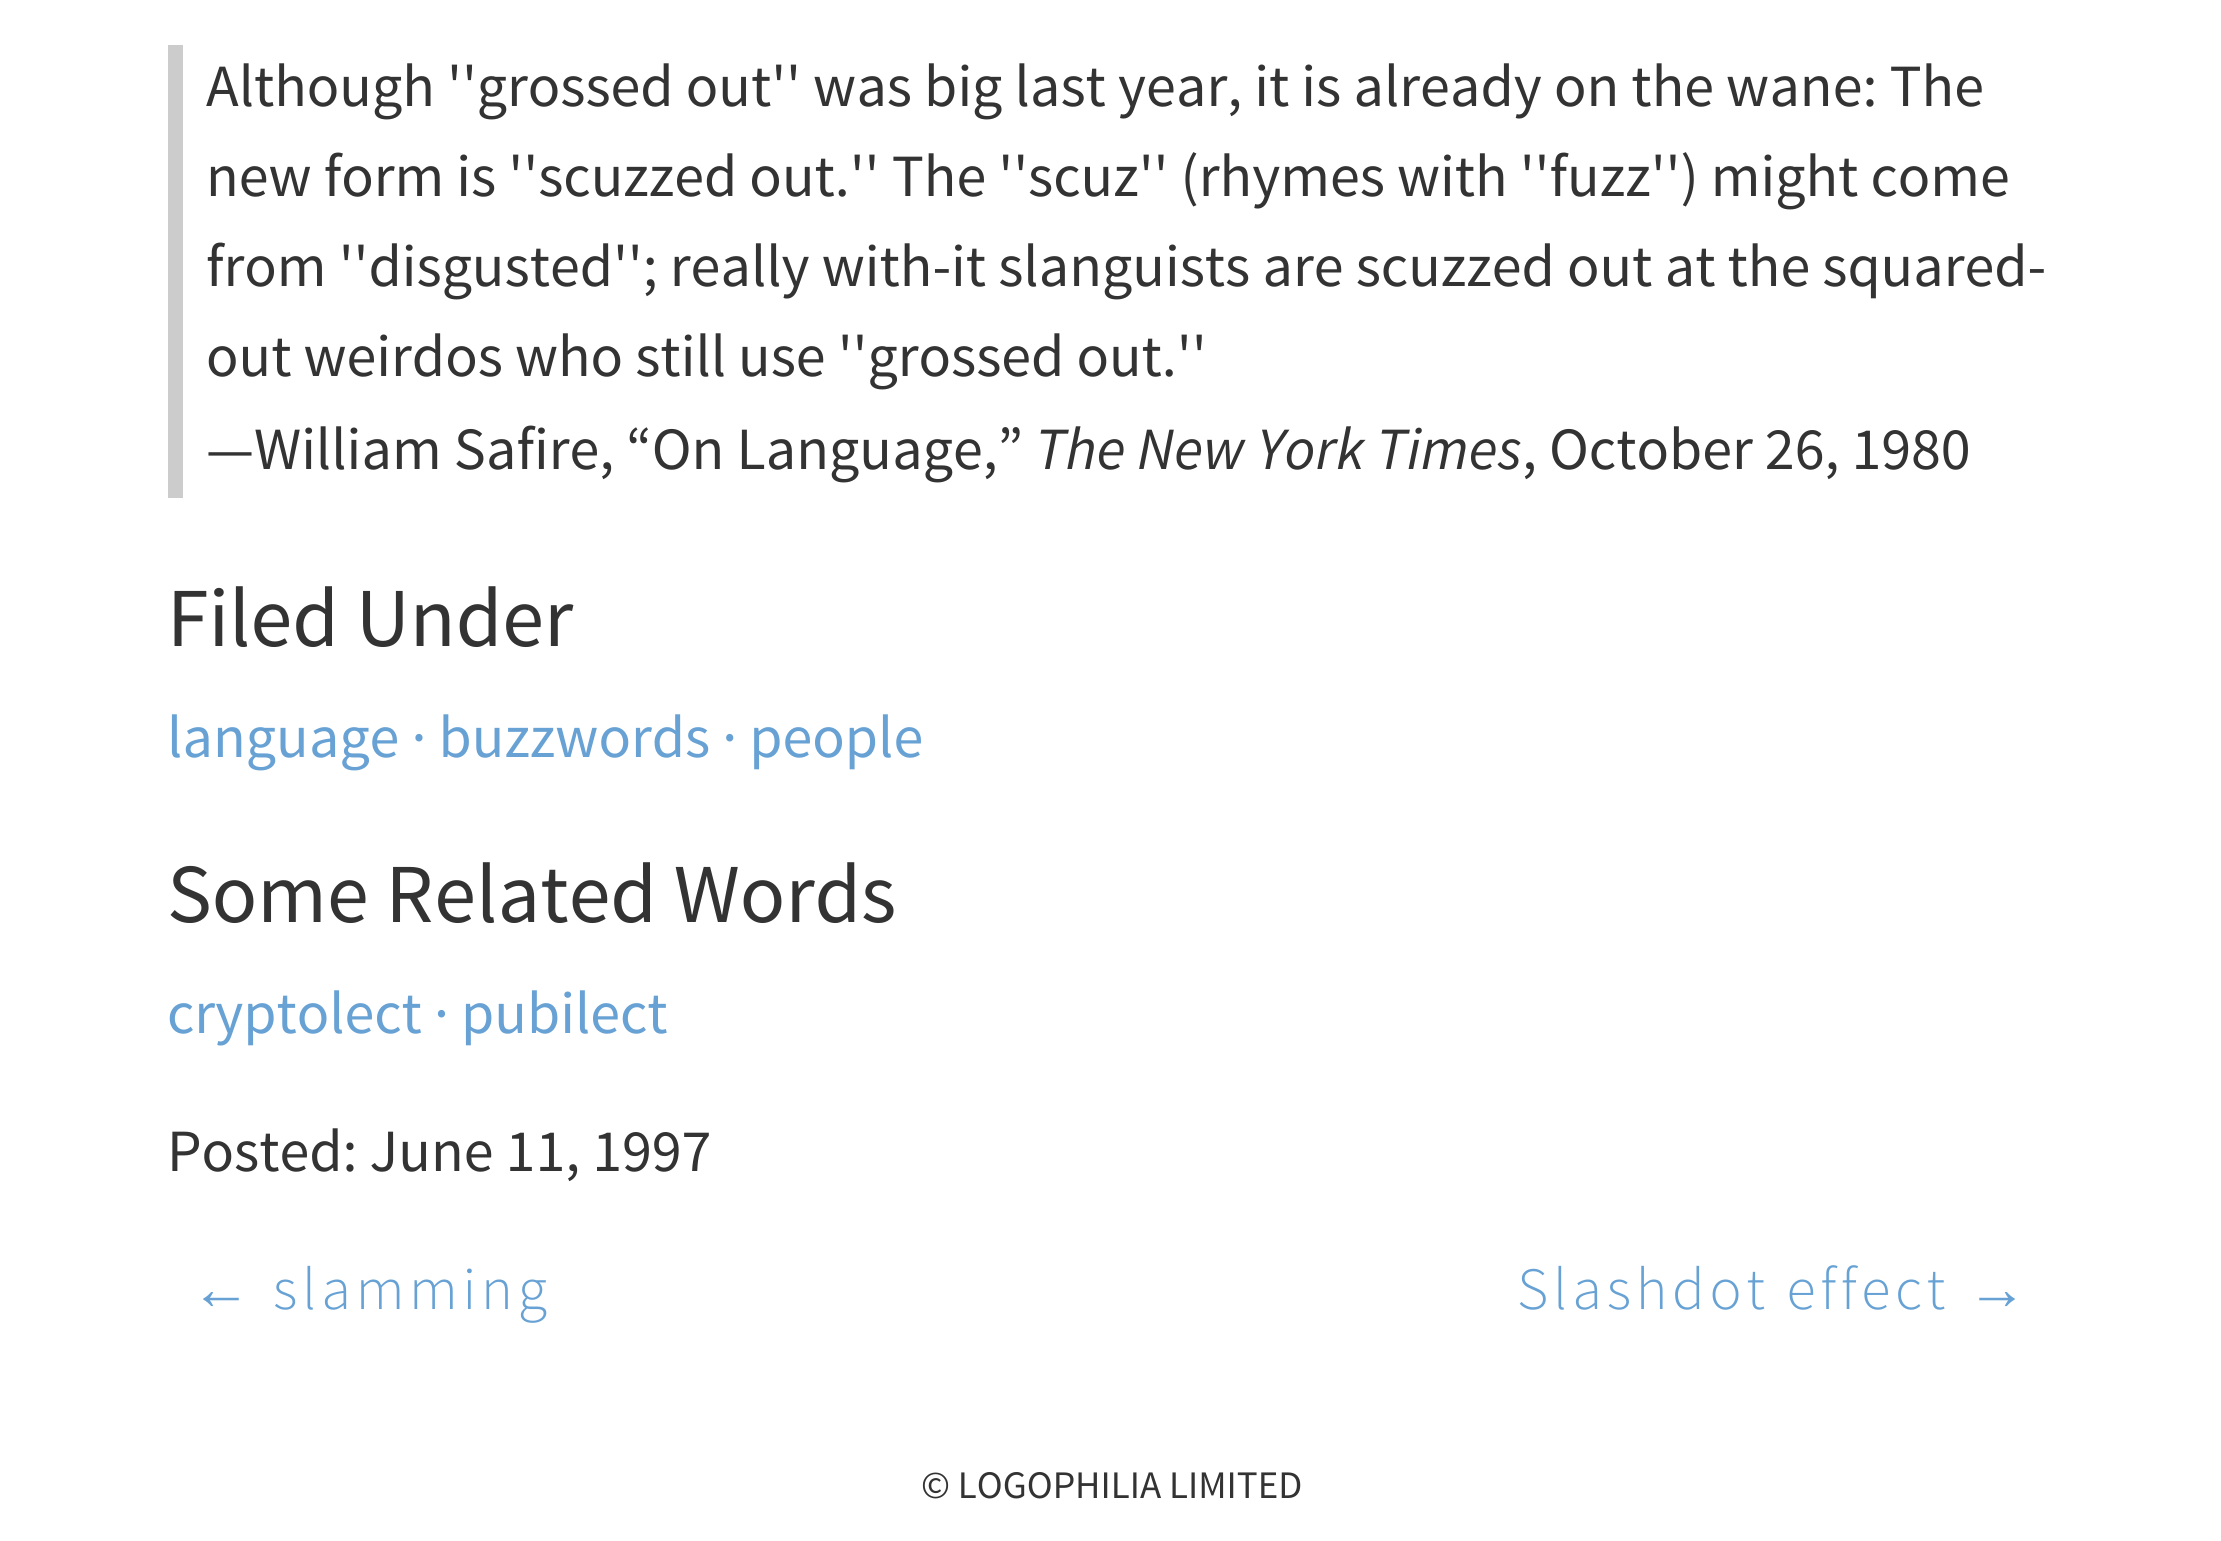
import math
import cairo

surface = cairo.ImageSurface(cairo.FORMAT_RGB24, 2221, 1541)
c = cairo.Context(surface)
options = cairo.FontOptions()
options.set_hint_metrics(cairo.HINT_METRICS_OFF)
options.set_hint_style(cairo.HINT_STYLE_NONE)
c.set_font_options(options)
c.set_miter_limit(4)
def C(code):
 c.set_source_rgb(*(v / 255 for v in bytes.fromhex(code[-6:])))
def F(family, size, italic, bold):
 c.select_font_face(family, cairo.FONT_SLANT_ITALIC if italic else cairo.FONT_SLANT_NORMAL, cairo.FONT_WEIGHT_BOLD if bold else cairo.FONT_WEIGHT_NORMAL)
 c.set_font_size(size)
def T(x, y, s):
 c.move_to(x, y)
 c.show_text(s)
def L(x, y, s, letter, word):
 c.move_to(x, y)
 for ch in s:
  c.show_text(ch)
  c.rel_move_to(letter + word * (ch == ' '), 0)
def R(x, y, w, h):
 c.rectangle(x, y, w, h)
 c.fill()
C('ffffff')
c.paint()
C('cccccc')
R(168,45,15,453)
F('Source Sans Pro',60,0,0)
C('333333')
T(206,106,'Although \'\'grossed out\'\' was big last year, it is already on the wane: The')
T(206,196,'new form is \'\'scuzzed out.\'\' The \'\'scuz\'\' (rhymes with \'\'fuzz\'\') might come')
T(206,286,'from \'\'disgusted\'\'; really with-it slanguists are scuzzed out at the squared-')
T(206,376,'out weirdos who still use \'\'grossed out.\'\'')
T(206,469,'—William Safire, “On Language,”')
F('Source Sans Pro',60,1,0)
T(1035,469,'The New York Times')
F('Source Sans Pro',60,0,0)
T(1522,469,', October 26, 1980')
F('Source Sans Pro',84,0,0)
T(167,646,'Filed Under')
F('Source Sans Pro',60,0,0)
C('68a2d4')
T(167,757,'language · buzzwords · people')
F('Source Sans Pro',84,0,0)
C('333333')
T(167,922,'Some Related Words')
F('Source Sans Pro',60,0,0)
C('68a2d4')
T(167,1033,'cryptolect · pubilect')
C('333333')
T(167,1171,'Posted: June 11, 1997')
F('Liberation Sans',60,0,0)
C('68a2d4')
L(191,1309,'←',4.75,0)
F('Source Sans Pro Light',60,0,0)
L(273,1309,'slamming',4.75,0)
L(1517,1309,'Slashdot effect',4.75,0)
F('Liberation Sans',60,0,0)
L(1967,1309,'→',4.75,0)
F('Source Sans Pro',39,0,0)
C('333333')
T(921,1498,'© LOGOPHILIA LIMITED')
surface.write_to_png('o.png')
